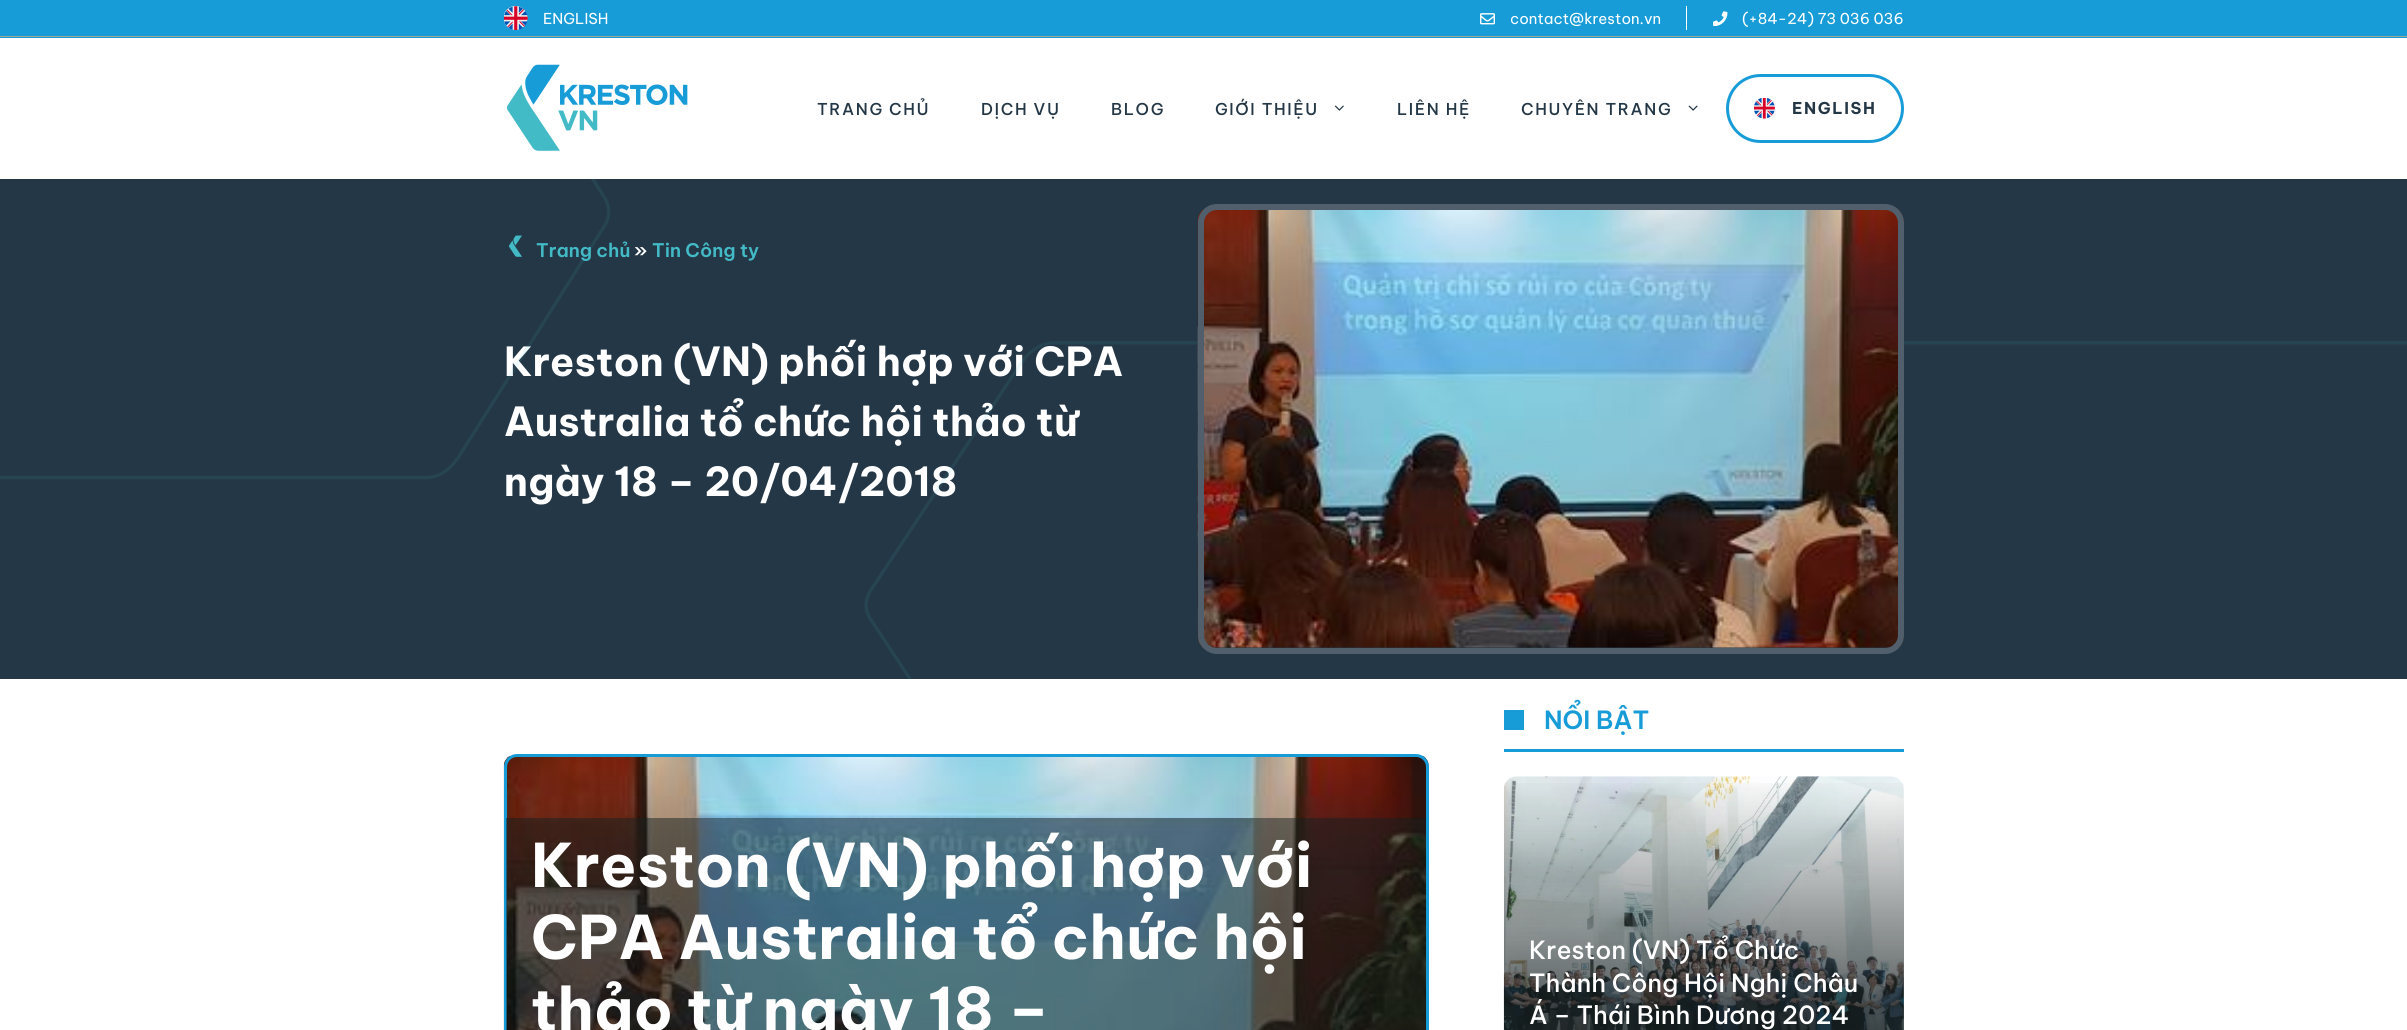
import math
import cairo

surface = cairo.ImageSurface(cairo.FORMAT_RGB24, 2407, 1030)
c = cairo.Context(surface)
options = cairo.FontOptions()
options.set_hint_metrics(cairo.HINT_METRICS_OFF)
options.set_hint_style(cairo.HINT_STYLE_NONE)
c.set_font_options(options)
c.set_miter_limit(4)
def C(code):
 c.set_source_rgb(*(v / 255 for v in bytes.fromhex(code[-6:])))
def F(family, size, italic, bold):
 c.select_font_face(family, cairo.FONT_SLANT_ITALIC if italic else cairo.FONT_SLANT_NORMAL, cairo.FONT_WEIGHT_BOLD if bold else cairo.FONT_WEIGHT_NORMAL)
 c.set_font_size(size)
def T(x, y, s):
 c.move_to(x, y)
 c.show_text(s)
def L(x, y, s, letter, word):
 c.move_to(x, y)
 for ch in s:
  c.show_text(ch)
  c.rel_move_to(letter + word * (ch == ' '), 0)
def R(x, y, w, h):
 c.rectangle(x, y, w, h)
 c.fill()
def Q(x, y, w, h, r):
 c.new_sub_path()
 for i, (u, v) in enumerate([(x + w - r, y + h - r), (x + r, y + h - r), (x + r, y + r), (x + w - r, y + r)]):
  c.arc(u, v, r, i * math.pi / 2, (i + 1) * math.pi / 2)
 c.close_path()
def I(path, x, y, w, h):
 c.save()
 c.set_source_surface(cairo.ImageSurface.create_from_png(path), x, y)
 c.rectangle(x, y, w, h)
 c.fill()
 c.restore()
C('ffffff')
c.paint()
C('189cd8')
R(0,0,2407,38)
C('a3a791')
R(0,36,2407,1)
I('1.png',504,6,24,24)
F('Be Vietnam Pro',15,0,0)
C('ffffff')
T(543,24,'ENGLISH')
R(1686,6,1,24)
I('2.png',1480,13,15,12)
T(1510,24,'contact@kreston.vn')
I('3.png',1713,11,15,15)
T(1742,24,'(+84-24) 73 036 036')
I('4.png',506,64,182,87)
F('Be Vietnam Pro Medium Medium',16.25,0,0)
C('243746')
L(817,115,'TRANG CHỦ',1.6,0)
L(981,115,'DỊCH VỤ',1.6,0)
L(1111,115,'BLOG',1.6,0)
L(1215,115,'GIỚI THIỆU',1.6,0)
I('5.png',1334,105,10,6)
L(1397,115,'LIÊN HỆ',1.6,0)
L(1521,115,'CHUYÊN TRANG',1.6,0)
I('6.png',1688,105,10,6)
Q(1727.5,75.5,175,66,33)
C('189cd8')
c.set_line_width(3)
c.stroke()
I('7.png',1754,98,21,21)
F('Be Vietnam Pro',16.25,0,1)
C('243746')
L(1792,114,'ENGLISH',1.6,0)
R(0,179,2407,500)
I('9.png',509,235,13,22)
F('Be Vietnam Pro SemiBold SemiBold',18.75,0,0)
C('43bbc7')
T(536,257,'Trang chủ')
C('ffffff')
T(634,257,'»')
C('43bbc7')
T(652,257,'Tin Công ty')
F('Be Vietnam Pro',40,0,1)
C('ffffff')
T(504,376,'Kreston (VN) phối hợp với CPA')
T(504,436,'Australia tổ chức hội thảo từ')
T(504,496,'ngày 18 – 20/04/2018')
I('8.png',0,179,2407,500)
I('10.png',1197,210,707,438)
Q(1201,207,700,444,16)
C('505f6b')
c.set_line_width(6)
c.stroke()
I('11.png',503,756,926,274)
Q(505.5,755.5,922,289,11.5)
C('189cd8')
c.set_line_width(3)
c.stroke()
c.set_source_rgba(0.09,0.125,0.129,0.5)
R(506,818,920,212)
F('Be Vietnam Pro',60,0,1)
C('ffffff')
T(531,887,'Kreston (VN) phối hợp với')
T(531,959,'CPA Australia tổ chức hội')
T(531,1031,'thảo từ ngày 18 –')
C('189cd8')
R(1504,749,400,3)
R(1504,710,20,20)
F('Be Vietnam Pro SemiBold SemiBold',25,0,0)
T(1544,729,'NỔI BẬT')
I('12.png',1503,776,401,254)
gradient = cairo.LinearGradient(1704,776,1704,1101)
gradient.add_color_stop_rgba(0,0.09,0.125,0.129,0)
gradient.add_color_stop_rgba(1,0.09,0.125,0.129,1)
c.set_source(gradient)
R(1504,783,400,247)
F('Be Vietnam Pro Medium Medium',25,0,0)
C('ffffff')
T(1529,959,'Kreston (VN) Tổ Chức')
T(1529,992,'Thành Công Hội Nghị Châu')
T(1529,1024,'Á – Thái Bình Dương 2024')
surface.write_to_png('o.png')
